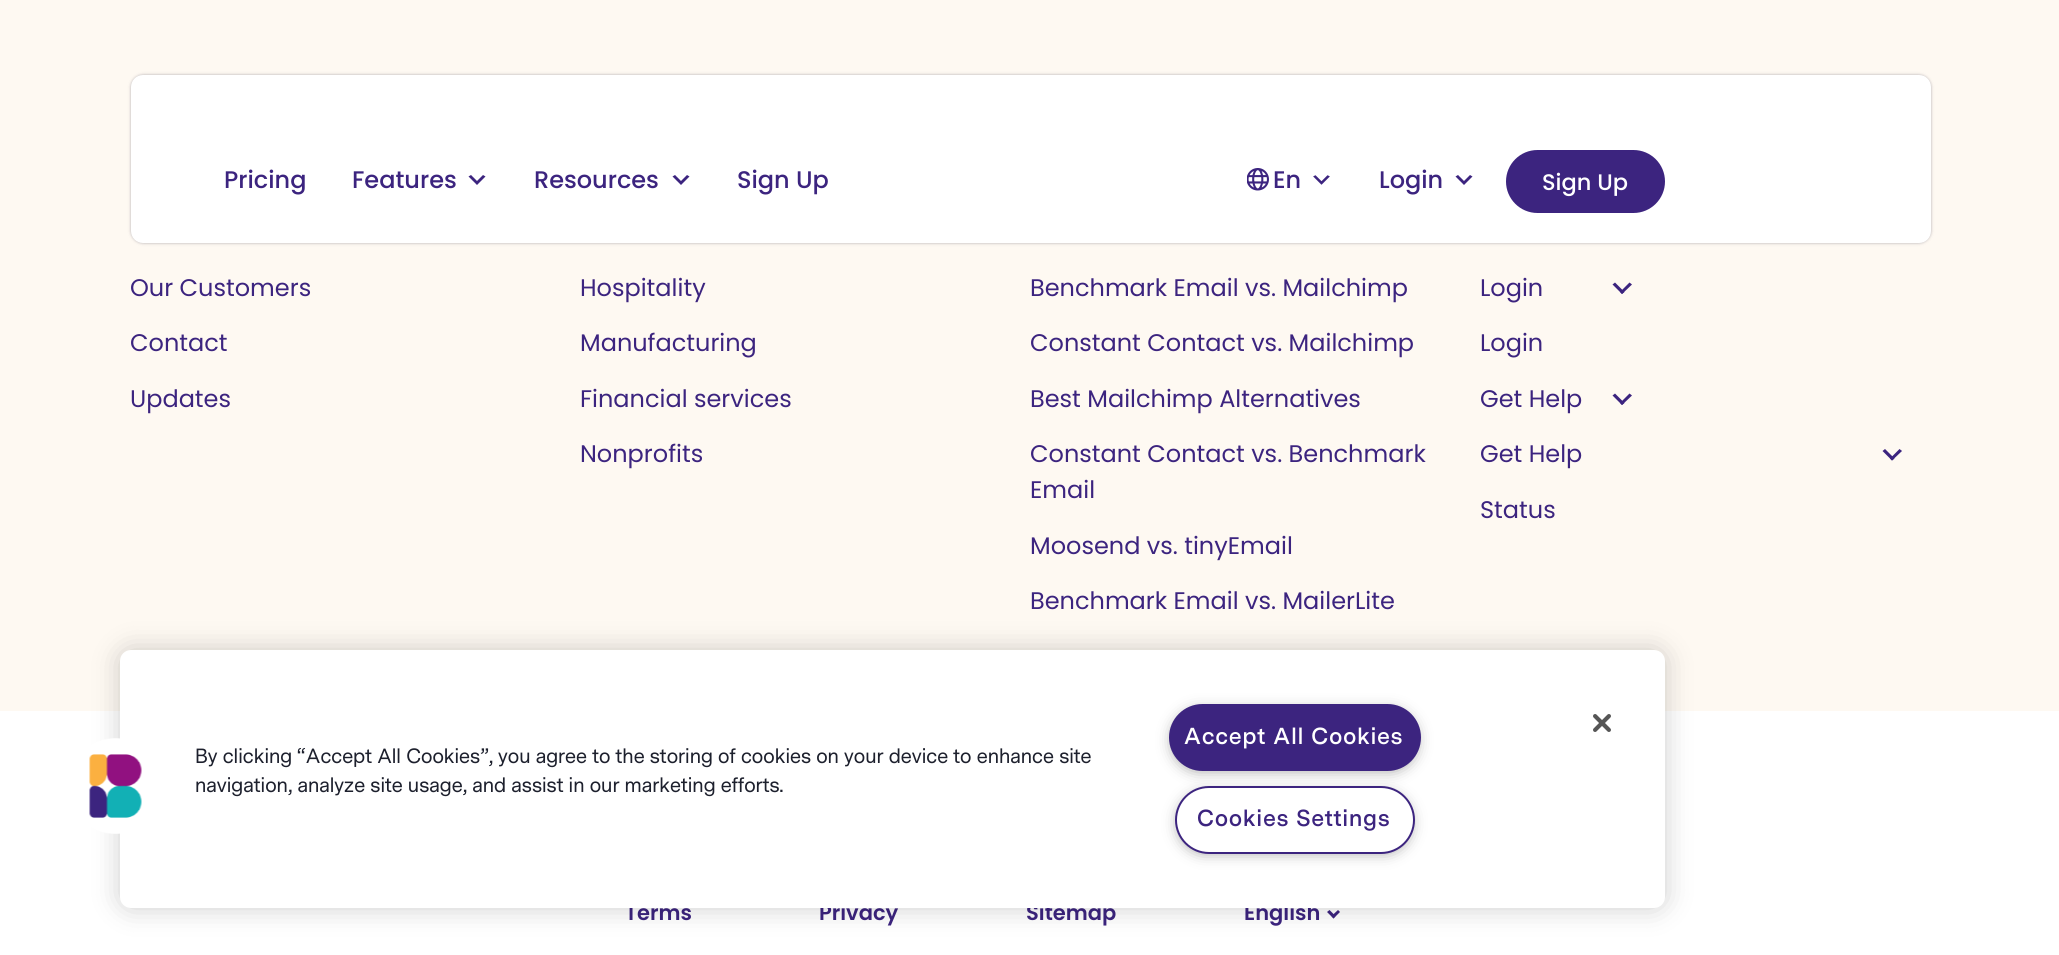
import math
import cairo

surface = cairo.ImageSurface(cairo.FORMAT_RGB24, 2059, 955)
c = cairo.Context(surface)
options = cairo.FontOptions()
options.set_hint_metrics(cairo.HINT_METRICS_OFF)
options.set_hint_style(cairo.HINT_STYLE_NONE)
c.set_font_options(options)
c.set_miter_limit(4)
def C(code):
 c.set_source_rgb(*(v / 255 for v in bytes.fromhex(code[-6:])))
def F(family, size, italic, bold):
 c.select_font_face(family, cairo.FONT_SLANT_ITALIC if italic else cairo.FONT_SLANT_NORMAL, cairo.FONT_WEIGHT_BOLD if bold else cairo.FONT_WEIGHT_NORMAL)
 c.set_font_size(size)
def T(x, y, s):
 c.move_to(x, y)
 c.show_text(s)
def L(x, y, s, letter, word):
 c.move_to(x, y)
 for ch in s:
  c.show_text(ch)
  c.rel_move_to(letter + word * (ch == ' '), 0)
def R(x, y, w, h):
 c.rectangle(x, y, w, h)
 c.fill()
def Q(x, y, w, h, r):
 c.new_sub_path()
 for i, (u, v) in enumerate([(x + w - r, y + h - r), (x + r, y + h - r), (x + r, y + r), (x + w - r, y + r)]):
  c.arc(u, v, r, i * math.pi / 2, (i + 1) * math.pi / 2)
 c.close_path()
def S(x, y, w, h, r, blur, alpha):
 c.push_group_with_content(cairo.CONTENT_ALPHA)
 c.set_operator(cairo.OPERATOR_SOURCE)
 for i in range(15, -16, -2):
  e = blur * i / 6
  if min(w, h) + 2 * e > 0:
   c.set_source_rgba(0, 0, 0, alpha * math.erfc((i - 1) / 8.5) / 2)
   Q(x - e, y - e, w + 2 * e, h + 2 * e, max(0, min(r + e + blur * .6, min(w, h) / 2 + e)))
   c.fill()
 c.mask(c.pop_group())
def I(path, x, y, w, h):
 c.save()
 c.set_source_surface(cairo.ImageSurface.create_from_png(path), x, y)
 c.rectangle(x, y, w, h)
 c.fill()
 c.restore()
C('fef9f2')
c.paint()
C('3c3549')
S(131,75,1800,168,12,1.5,.4)
C('ffffff')
Q(131,75,1800,168,12)
c.fill()
F('Poppins Medium',24,0,0)
C('3c247f')
T(224,188,'Pricing')
T(352,188,'Features')
c.new_path()
c.move_to(471,175)
c.line_to(477,181)
c.line_to(483,175)
c.line_to(485.5,176.5)
c.line_to(477,185)
c.line_to(468.5,176.5)
c.close_path()
c.fill()
T(534,188,'Resources')
c.new_path()
c.move_to(675,175)
c.line_to(681,181)
c.line_to(687,175)
c.line_to(689.5,176.5)
c.line_to(681,185)
c.line_to(672.5,176.5)
c.close_path()
c.fill()
T(737,188,'Sign Up')
I('1.png',1247,168,22,23)
T(1273,188,'En')
I('2.png',1313,175,17,10)
T(1379,188,'Login')
c.new_path()
c.move_to(1458,175)
c.line_to(1464,181)
c.line_to(1470,175)
c.line_to(1472.5,176.5)
c.line_to(1464,185)
c.line_to(1455.5,176.5)
c.close_path()
c.fill()
Q(1506,150,159,63,31.5)
c.fill()
F('Poppins Medium',22.5,0,0)
C('ffffff')
T(1542,190,'Sign Up')
F('Poppins',24,0,0)
C('3c247f')
T(130,296,'Our Customers')
T(130,351,'Contact')
T(130,407,'Updates')
T(580,296,'Hospitality')
T(580,351,'Manufacturing')
T(580,407,'Financial services')
T(580,462,'Nonprofits')
T(1030,296,'Benchmark Email vs. Mailchimp')
T(1030,351,'Constant Contact vs. Mailchimp')
T(1030,407,'Best Mailchimp Alternatives')
T(1030,462,'Constant Contact vs. Benchmark')
T(1030,498,'Email')
T(1030,554,'Moosend vs. tinyEmail')
T(1030,609,'Benchmark Email vs. MailerLite')
T(1480,296,'Login')
c.new_path()
c.move_to(1629.5,282.5)
c.line_to(1632,284.5)
c.line_to(1622,294)
c.line_to(1620,292)
c.close_path()
c.fill()
c.new_path()
c.move_to(1615,282.5)
c.line_to(1624.5,292)
c.line_to(1622,294)
c.line_to(1612.5,284.5)
c.close_path()
c.fill()
T(1480,351,'Login')
T(1480,407,'Get Help')
c.new_path()
c.move_to(1629.5,393.5)
c.line_to(1632,395.5)
c.line_to(1622,405)
c.line_to(1620,403)
c.close_path()
c.fill()
c.new_path()
c.move_to(1615,393.5)
c.line_to(1624.5,403)
c.line_to(1622,405)
c.line_to(1612.5,395.5)
c.close_path()
c.fill()
T(1480,462,'Get Help')
c.new_path()
c.move_to(1899.5,449)
c.line_to(1902,451)
c.line_to(1892,460.5)
c.line_to(1890,458.5)
c.close_path()
c.fill()
c.new_path()
c.move_to(1885,449)
c.line_to(1894.5,458.5)
c.line_to(1892,460.5)
c.line_to(1882.5,451)
c.close_path()
c.fill()
T(1480,518,'Status')
C('ffffff')
R(0,711,2059,244)
F('Poppins SemiBold',21,0,0)
C('3c247f')
T(625,920,'Terms')
T(819,920,'Privacy')
T(1026,920,'Sitemap')
T(1244,920,'English')
c.new_path()
c.move_to(1338,910)
c.line_to(1340,912)
c.line_to(1333.5,918.5)
c.line_to(1331.5,916)
c.close_path()
c.fill()
c.new_path()
c.move_to(1329.5,910)
c.line_to(1335.5,916)
c.line_to(1333.5,918.5)
c.line_to(1327,912)
c.close_path()
c.fill()
C('000000')
S(120,650,1545,258,11,13.5,.2)
C('ffffff')
Q(120,650,1545,258,11)
c.fill()
I('3.png',89,738,53,96)
I('4.png',1593,714,18,18)
F('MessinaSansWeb',19.2,0,0)
C('1d202d')
T(195,763,'By clicking “Accept All Cookies”, you agree to the storing of cookies on your device to enhance site')
T(195,792,'navigation, analyze site usage, and assist in our marketing efforts.')
C('999999')
S(1173,711,243,59,29.5,7.5,1)
C('3c247f')
Q(1170,705,250,65,32.5)
c.fill_preserve()
c.stroke()
F('MessinaSansWeb SemiBold',21.6,0,0)
C('ffffff')
L(1184,744,'Accept All Cookies',1.1,0)
C('999999')
S(1179,794,231,58,29,7.5,1)
C('ffffff')
Q(1176,787,238,66,33)
c.fill_preserve()
C('3c247f')
c.stroke()
L(1197,826,'Cookies Settings',1.1,0)
surface.write_to_png('o.png')
